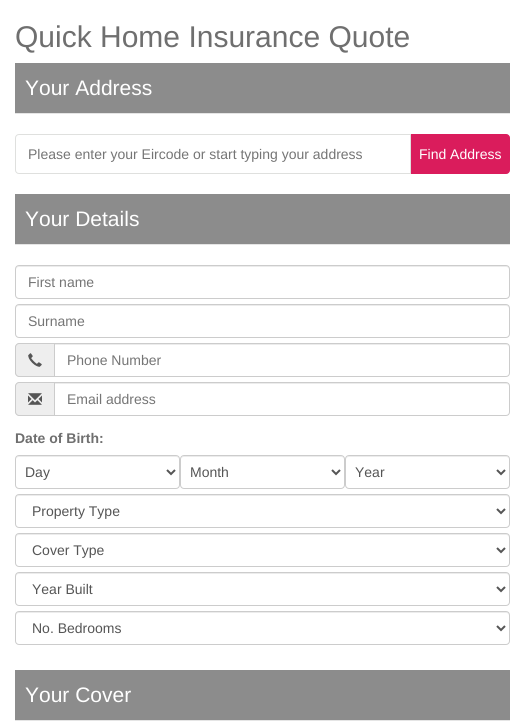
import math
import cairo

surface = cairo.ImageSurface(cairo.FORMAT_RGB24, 525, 727)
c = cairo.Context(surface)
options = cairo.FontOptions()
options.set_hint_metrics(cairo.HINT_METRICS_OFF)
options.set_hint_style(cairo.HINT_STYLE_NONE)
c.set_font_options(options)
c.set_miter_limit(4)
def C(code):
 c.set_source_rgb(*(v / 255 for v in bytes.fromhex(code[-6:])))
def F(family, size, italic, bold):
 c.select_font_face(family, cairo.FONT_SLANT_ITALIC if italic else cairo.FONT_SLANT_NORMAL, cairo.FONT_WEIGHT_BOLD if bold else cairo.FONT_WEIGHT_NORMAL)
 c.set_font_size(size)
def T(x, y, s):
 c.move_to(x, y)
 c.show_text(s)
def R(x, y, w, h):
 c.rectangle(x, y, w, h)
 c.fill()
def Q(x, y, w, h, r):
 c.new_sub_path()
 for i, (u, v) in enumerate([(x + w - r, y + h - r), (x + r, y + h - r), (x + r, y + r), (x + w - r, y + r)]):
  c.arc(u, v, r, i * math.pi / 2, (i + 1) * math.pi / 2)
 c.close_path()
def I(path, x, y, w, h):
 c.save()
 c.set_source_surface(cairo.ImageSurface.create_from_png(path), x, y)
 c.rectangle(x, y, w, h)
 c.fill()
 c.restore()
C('ffffff')
c.paint()
F('Liberation Sans',30,0,0)
C('6f6f6f')
T(15,47,'Quick Home Insurance Quote')
C('8c8c8c')
R(15,63,495,50)
C('e5e5e5')
R(15,113,495,1)
F('Liberation Sans',21,0,0)
C('ffffff')
T(25,95,'Your Address')
c.new_path()
c.move_to(19,134.5)
c.line_to(410.5,134.5)
c.line_to(410.5,173.5)
c.line_to(19,173.5)
c.curve_to(17,173.5,15.5,172,15.5,170)
c.line_to(15.5,138)
c.curve_to(15.5,136,17,134.5,19,134.5)
c.close_path()
C('dfe0de')
c.set_line_width(1)
c.stroke()
F('Liberation Sans',14,0,0)
C('757575')
T(28,159,'Please enter your Eircode or start typing your address')
C('da1c5c')
c.new_path()
c.move_to(411.5,134.5)
c.line_to(506,134.5)
c.curve_to(508,134.5,509.5,136,509.5,138)
c.line_to(509.5,170)
c.curve_to(509.5,172,508,173.5,506,173.5)
c.line_to(411.5,173.5)
c.close_path()
c.fill_preserve()
c.stroke()
C('ffffff')
T(419,159,'Find Address')
C('8c8c8c')
R(15,194,495,50)
C('e5e5e5')
R(15,244,495,1)
F('Liberation Sans',21,0,0)
C('ffffff')
T(25,226,'Your Details')
C('ececec')
c.new_path()
c.move_to(19,267)
c.line_to(506,267)
c.curve_to(508,267,509,268,509,270)
c.line_to(509,269)
c.curve_to(509,267,508,266,506,266)
c.line_to(19,266)
c.curve_to(17,266,16,267,16,269)
c.line_to(16,270)
c.curve_to(16,268,17,267,19,267)
c.close_path()
c.fill()
Q(15.5,265.5,494,33,3.5)
C('cccccc')
c.stroke()
F('Liberation Sans',14,0,0)
C('757575')
T(28,287,'First name')
C('ececec')
c.new_path()
c.move_to(19,306)
c.line_to(506,306)
c.curve_to(508,306,509,307,509,309)
c.line_to(509,308)
c.curve_to(509,306,508,305,506,305)
c.line_to(19,305)
c.curve_to(17,305,16,306,16,308)
c.line_to(16,309)
c.curve_to(16,307,17,306,19,306)
c.close_path()
c.fill()
Q(15.5,304.5,494,33,3.5)
C('cccccc')
c.stroke()
C('757575')
T(28,326,'Surname')
C('eeeeee')
c.new_path()
c.move_to(19,343)
c.line_to(54,343)
c.line_to(54,377)
c.line_to(19,377)
c.curve_to(17,377,15,375,15,373)
c.line_to(15,347)
c.curve_to(15,345,17,343,19,343)
c.close_path()
c.fill()
C('cccccc')
c.set_fill_rule(cairo.FILL_RULE_EVEN_ODD)
c.new_path()
c.move_to(19,343)
c.line_to(54,343)
c.line_to(54,377)
c.line_to(19,377)
c.curve_to(17,377,15,375,15,373)
c.line_to(15,347)
c.curve_to(15,345,17,343,19,343)
c.close_path()
c.move_to(19,344)
c.line_to(54,344)
c.line_to(54,376)
c.line_to(19,376)
c.curve_to(17.5,376,16,374.5,16,373)
c.line_to(16,347)
c.curve_to(16,345.5,17.5,344,19,344)
c.close_path()
c.fill()
I('1.png',28,353,14,14)
C('ececec')
c.set_fill_rule(cairo.FILL_RULE_WINDING)
c.new_path()
c.move_to(55,345)
c.line_to(506,345)
c.curve_to(508,345,509,346,509,348)
c.curve_to(509,346,508,344,506,344)
c.line_to(55,344)
c.close_path()
c.fill()
c.new_path()
c.move_to(54.5,343.5)
c.line_to(506,343.5)
c.curve_to(508,343.5,509.5,345,509.5,347)
c.line_to(509.5,373)
c.curve_to(509.5,375,508,376.5,506,376.5)
c.line_to(54.5,376.5)
c.close_path()
C('cccccc')
c.stroke()
C('757575')
T(67,365,'Phone Number')
C('eeeeee')
c.new_path()
c.move_to(19,382)
c.line_to(54,382)
c.line_to(54,416)
c.line_to(19,416)
c.curve_to(17,416,15,414,15,412)
c.line_to(15,386)
c.curve_to(15,384,17,382,19,382)
c.close_path()
c.fill()
C('cccccc')
c.set_fill_rule(cairo.FILL_RULE_EVEN_ODD)
c.new_path()
c.move_to(19,382)
c.line_to(54,382)
c.line_to(54,416)
c.line_to(19,416)
c.curve_to(17,416,15,414,15,412)
c.line_to(15,386)
c.curve_to(15,384,17,382,19,382)
c.close_path()
c.move_to(19,383)
c.line_to(54,383)
c.line_to(54,415)
c.line_to(19,415)
c.curve_to(17.5,415,16,413.5,16,412)
c.line_to(16,386)
c.curve_to(16,384.5,17.5,383,19,383)
c.close_path()
c.fill()
I('2.png',28,393,14,12)
C('ececec')
c.set_fill_rule(cairo.FILL_RULE_WINDING)
c.new_path()
c.move_to(55,384)
c.line_to(506,384)
c.curve_to(508,384,509,385,509,387)
c.curve_to(509,385,508,383,506,383)
c.line_to(55,383)
c.close_path()
c.fill()
c.new_path()
c.move_to(54.5,382.5)
c.line_to(506,382.5)
c.curve_to(508,382.5,509.5,384,509.5,386)
c.line_to(509.5,412)
c.curve_to(509.5,414,508,415.5,506,415.5)
c.line_to(54.5,415.5)
c.close_path()
C('cccccc')
c.stroke()
C('757575')
T(67,404,'Email address')
F('Liberation Sans',14,0,1)
C('6f6f6f')
T(15,443,'Date of Birth:')
C('ececec')
c.new_path()
c.move_to(19,457)
c.line_to(176,457)
c.curve_to(178,457,179,458,179,460)
c.curve_to(179,458,178,456,176,456)
c.line_to(19,456)
c.curve_to(17,456,16,458,16,460)
c.curve_to(16,458,17,457,19,457)
c.close_path()
c.fill()
Q(15.5,455.5,164,33,3.5)
C('cccccc')
c.stroke()
c.new_path()
c.move_to(167,470)
c.line_to(171,474)
c.line_to(175,470)
C('555555')
c.set_line_width(2)
c.stroke()
F('Liberation Sans',14,0,0)
T(25,477,'Day')
C('ececec')
c.new_path()
c.move_to(184,457)
c.line_to(341,457)
c.curve_to(343,457,344,458,344,460)
c.curve_to(344,458,343,456,341,456)
c.line_to(184,456)
c.curve_to(182,456,181,458,181,460)
c.curve_to(181,458,182,457,184,457)
c.close_path()
c.fill()
Q(180.5,455.5,164,33,3.5)
C('cccccc')
c.set_line_width(1)
c.stroke()
c.new_path()
c.move_to(332,470)
c.line_to(336,474)
c.line_to(340,470)
C('555555')
c.set_line_width(2)
c.stroke()
T(190,477,'Month')
C('ececec')
c.new_path()
c.move_to(349,457)
c.line_to(506,457)
c.curve_to(508,457,509,458,509,460)
c.curve_to(509,458,508,456,506,456)
c.line_to(349,456)
c.curve_to(347,456,346,458,346,460)
c.curve_to(346,458,347,457,349,457)
c.close_path()
c.fill()
Q(345.5,455.5,164,33,3.5)
C('cccccc')
c.set_line_width(1)
c.stroke()
c.new_path()
c.move_to(497,470)
c.line_to(501,474)
c.line_to(505,470)
C('555555')
c.set_line_width(2)
c.stroke()
T(355,477,'Year')
C('ececec')
c.new_path()
c.move_to(19,496)
c.line_to(506,496)
c.curve_to(508,496,509,497,509,499)
c.line_to(509,498)
c.curve_to(509,496,508,495,506,495)
c.line_to(19,495)
c.curve_to(17,495,16,496,16,498)
c.line_to(16,499)
c.curve_to(16,497,17,496,19,496)
c.close_path()
c.fill()
Q(15.5,494.5,494,33,3.5)
C('cccccc')
c.set_line_width(1)
c.stroke()
c.new_path()
c.move_to(497,509)
c.line_to(501,513)
c.line_to(505,509)
C('555555')
c.set_line_width(2)
c.stroke()
T(32,516,'Property Type')
C('ececec')
c.new_path()
c.move_to(19,535)
c.line_to(506,535)
c.curve_to(508,535,509,536,509,538)
c.line_to(509,537)
c.curve_to(509,535,508,534,506,534)
c.line_to(19,534)
c.curve_to(17,534,16,535,16,537)
c.line_to(16,538)
c.curve_to(16,536,17,535,19,535)
c.close_path()
c.fill()
Q(15.5,533.5,494,33,3.5)
C('cccccc')
c.set_line_width(1)
c.stroke()
c.new_path()
c.move_to(497,548)
c.line_to(501,552)
c.line_to(505,548)
C('555555')
c.set_line_width(2)
c.stroke()
T(32,555,'Cover Type')
C('ececec')
c.new_path()
c.move_to(19,574)
c.line_to(506,574)
c.curve_to(508,574,509,575,509,577)
c.line_to(509,576)
c.curve_to(509,574,508,573,506,573)
c.line_to(19,573)
c.curve_to(17,573,16,574,16,576)
c.line_to(16,577)
c.curve_to(16,575,17,574,19,574)
c.close_path()
c.fill()
Q(15.5,572.5,494,33,3.5)
C('cccccc')
c.set_line_width(1)
c.stroke()
c.new_path()
c.move_to(497,587)
c.line_to(501,591)
c.line_to(505,587)
C('555555')
c.set_line_width(2)
c.stroke()
T(32,594,'Year Built')
C('ececec')
c.new_path()
c.move_to(19,613)
c.line_to(506,613)
c.curve_to(508,613,509,614,509,616)
c.line_to(509,615)
c.curve_to(509,613,508,612,506,612)
c.line_to(19,612)
c.curve_to(17,612,16,613,16,615)
c.line_to(16,616)
c.curve_to(16,614,17,613,19,613)
c.close_path()
c.fill()
Q(15.5,611.5,494,33,3.5)
C('cccccc')
c.set_line_width(1)
c.stroke()
c.new_path()
c.move_to(497,626)
c.line_to(501,630)
c.line_to(505,626)
C('555555')
c.set_line_width(2)
c.stroke()
T(32,633,'No. Bedrooms')
C('8c8c8c')
R(15,670,495,50)
C('e5e5e5')
R(15,720,495,1)
F('Liberation Sans',21,0,0)
C('ffffff')
T(25,702,'Your Cover')
surface.write_to_png('o.png')
